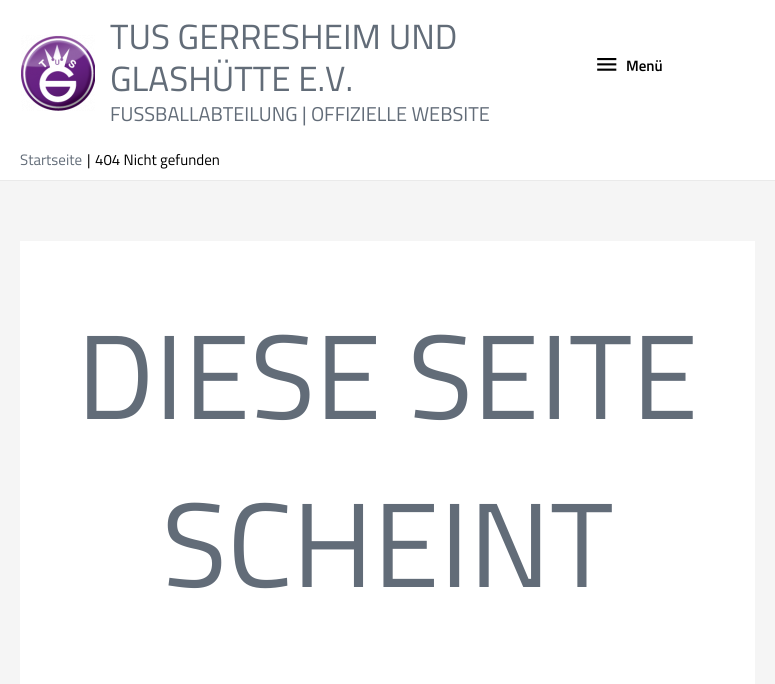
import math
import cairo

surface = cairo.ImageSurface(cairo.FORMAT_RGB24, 775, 684)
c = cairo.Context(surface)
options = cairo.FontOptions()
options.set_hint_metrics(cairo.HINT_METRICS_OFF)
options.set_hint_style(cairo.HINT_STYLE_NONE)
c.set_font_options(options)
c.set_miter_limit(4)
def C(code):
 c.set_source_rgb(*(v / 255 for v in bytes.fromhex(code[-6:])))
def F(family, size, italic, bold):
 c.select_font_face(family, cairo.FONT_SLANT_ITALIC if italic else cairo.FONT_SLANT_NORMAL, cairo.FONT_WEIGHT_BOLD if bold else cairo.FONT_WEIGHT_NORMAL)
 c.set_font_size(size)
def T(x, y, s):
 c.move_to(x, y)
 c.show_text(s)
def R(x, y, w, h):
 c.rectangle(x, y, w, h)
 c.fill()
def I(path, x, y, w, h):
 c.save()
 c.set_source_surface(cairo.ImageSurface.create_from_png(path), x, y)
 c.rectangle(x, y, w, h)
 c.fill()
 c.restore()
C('f5f5f5')
c.paint()
C('ffffff')
R(0,0,775,180)
I('1.png',21,35,74,76)
F('Titillium Web',35,0,0)
C('626c78')
T(110,49,'TUS GERRESHEIM UND')
T(110,91,'GLASHÜTTE E.V.')
F('Titillium Web',20,0,0)
T(110,121,'FUSSBALLABTEILUNG | OFFIZIELLE WEBSITE')
I('2.png',597,58,20,13)
F('Titillium Web SemiBold',15,0,0)
C('000000')
T(626,71,'Menü')
C('eaeaea')
R(0,180,775,1)
F('Titillium Web',15,0,0)
C('626c78')
T(20,165,'Startseite')
C('000000')
T(87,165,'|')
T(95,165,'404 Nicht gefunden')
C('ffffff')
R(20,241,735,443)
F('Titillium Web',120,0,0)
C('626c78')
T(77,419,'DIESE SEITE')
T(162,587,'SCHEINT')
surface.write_to_png('o.png')
